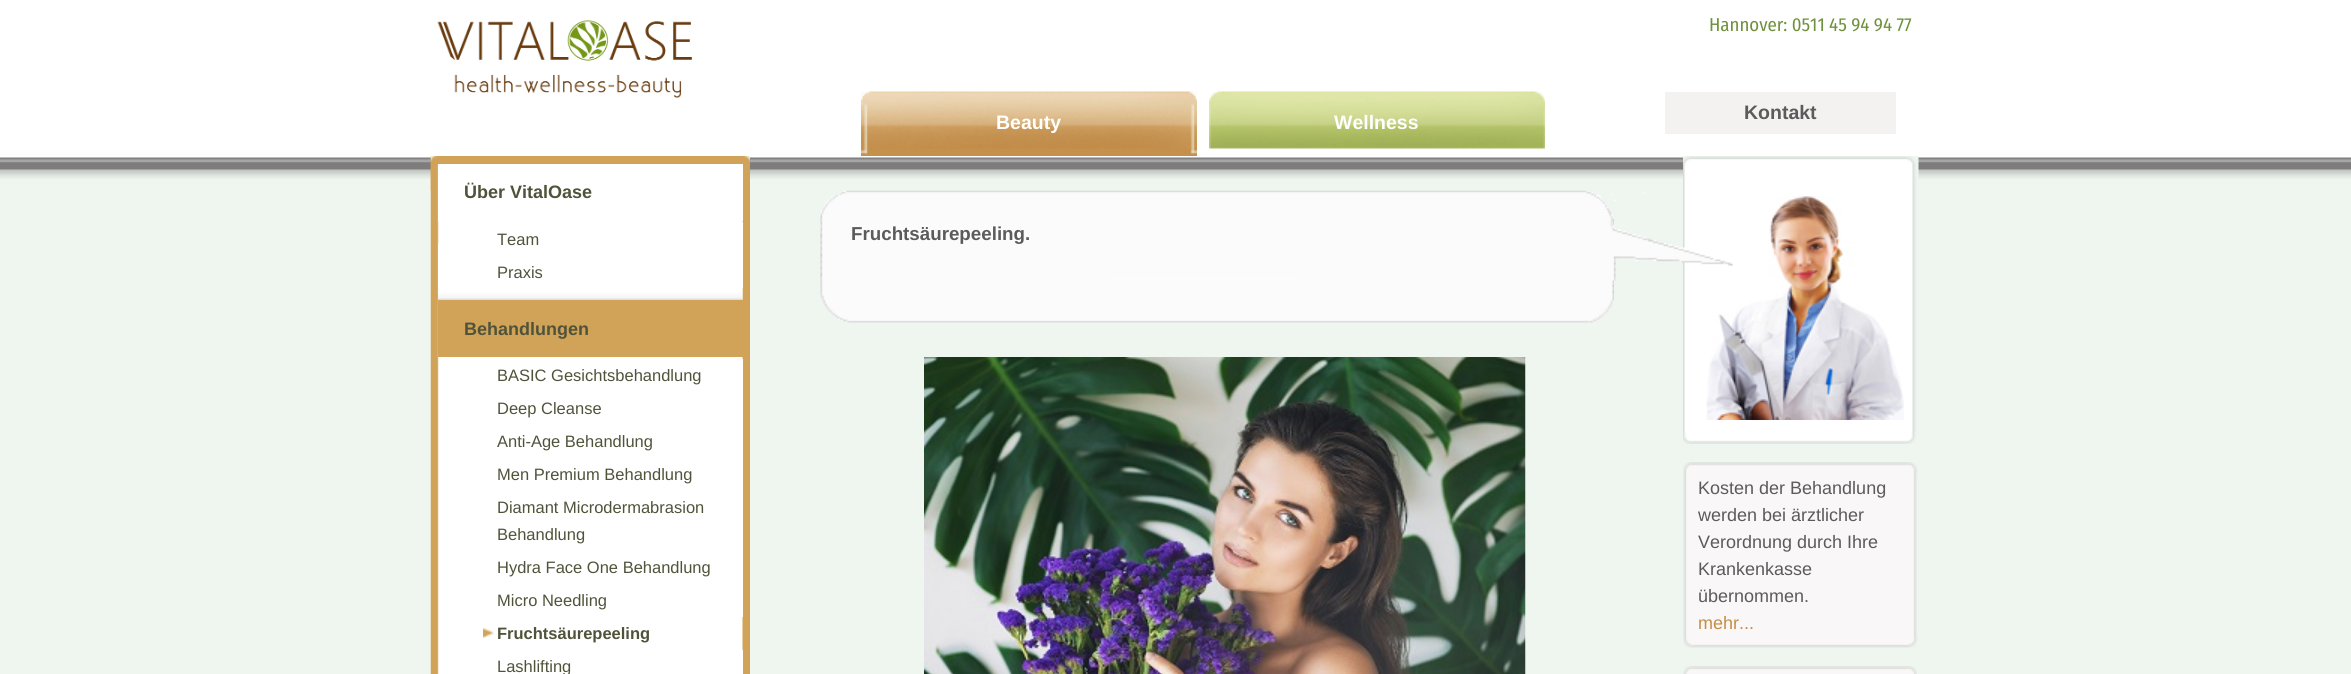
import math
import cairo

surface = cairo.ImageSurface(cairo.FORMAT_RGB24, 2351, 674)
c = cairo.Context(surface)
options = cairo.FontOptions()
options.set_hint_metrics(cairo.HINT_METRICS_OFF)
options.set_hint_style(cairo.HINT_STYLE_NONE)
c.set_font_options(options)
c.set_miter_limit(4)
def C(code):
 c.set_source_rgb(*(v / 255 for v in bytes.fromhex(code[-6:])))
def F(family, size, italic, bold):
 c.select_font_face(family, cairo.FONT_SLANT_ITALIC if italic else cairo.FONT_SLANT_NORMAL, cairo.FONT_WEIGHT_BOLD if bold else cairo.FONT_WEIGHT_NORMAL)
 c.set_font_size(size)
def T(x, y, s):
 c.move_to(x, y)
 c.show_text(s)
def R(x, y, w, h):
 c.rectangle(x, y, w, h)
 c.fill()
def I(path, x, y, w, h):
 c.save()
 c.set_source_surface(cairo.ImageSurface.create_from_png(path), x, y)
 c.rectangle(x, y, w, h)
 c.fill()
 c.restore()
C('eff5ef')
c.paint()
I('1.png',0,0,2351,179)
I('2.png',437,20,255,78)
F('Fira Sans Condensed',18.75,0,0)
C('6f913b')
T(1709,31,'Hannover: 0511 45 94 94 77')
C('f4f1f1')
R(1665,92,231,42)
F('Liberation Sans',19.5,0,1)
C('5b5b5b')
T(1744,119,'Kontakt')
I('3.png',861,91,336,65)
C('ffffff')
T(996,129,'Beauty')
I('4.png',1209,91,336,58)
T(1334,129,'Wellness')
I('5.png',430,156,320,518)
I('6.png',430,156,320,35)
I('7.png',438,244,305,56)
R(438,164,305,57)
F('Liberation Sans',18,0,1)
C('50533a')
T(464,198,'Über VitalOase')
C('ffffff')
R(742,222,1,66)
F('Liberation Sans',16.5,0,0)
C('50533a')
T(497,245,'Team')
T(497,278,'Praxis')
C('d1a358')
R(438,300,305,57)
F('Liberation Sans',18,0,1)
C('50533a')
T(464,335,'Behandlungen')
C('ffffff')
R(742,359,1,258)
F('Liberation Sans',16.5,0,0)
C('50533a')
T(497,381,'BASIC Gesichtsbehandlung')
T(497,414,'Deep Cleanse')
T(497,447,'Anti-Age Behandlung')
T(497,480,'Men Premium Behandlung')
T(497,513,'Diamant Microdermabrasion')
T(497,540,'Behandlung')
T(497,573,'Hydra Face One Behandlung')
T(497,606,'Micro Needling')
I('8.png',483,628,11,10)
F('Liberation Sans',16.5,0,1)
T(497,639,'Fruchtsäurepeeling')
C('ffffff')
R(742,650,1,24)
F('Liberation Sans',16.5,0,0)
C('50533a')
T(497,672,'Lashlifting')
I('9.png',820,217,794,106)
I('13.png',1683,168,236,264)
I('14.png',1706,196,198,224)
I('10.png',820,190,913,91)
F('Liberation Sans',18.75,0,1)
C('5b5b5b')
T(851,240,'Fruchtsäurepeeling.')
I('11.png',924,357,602,317)
I('12.png',1683,156,236,12)
I('15.png',1683,432,233,12)
I('16.png',1683,462,235,12)
I('17.png',1683,474,234,162)
F('Liberation Sans',18,0,0)
T(1698,494,'Kosten der Behandlung')
T(1698,521,'werden bei ärztlicher')
T(1698,548,'Verordnung durch Ihre')
T(1698,575,'Krankenkasse')
T(1698,602,'übernommen.')
C('c58e45')
T(1698,629,'mehr...')
I('18.png',1683,636,235,12)
I('19.png',1683,666,234,8)
surface.write_to_png('o.png')
